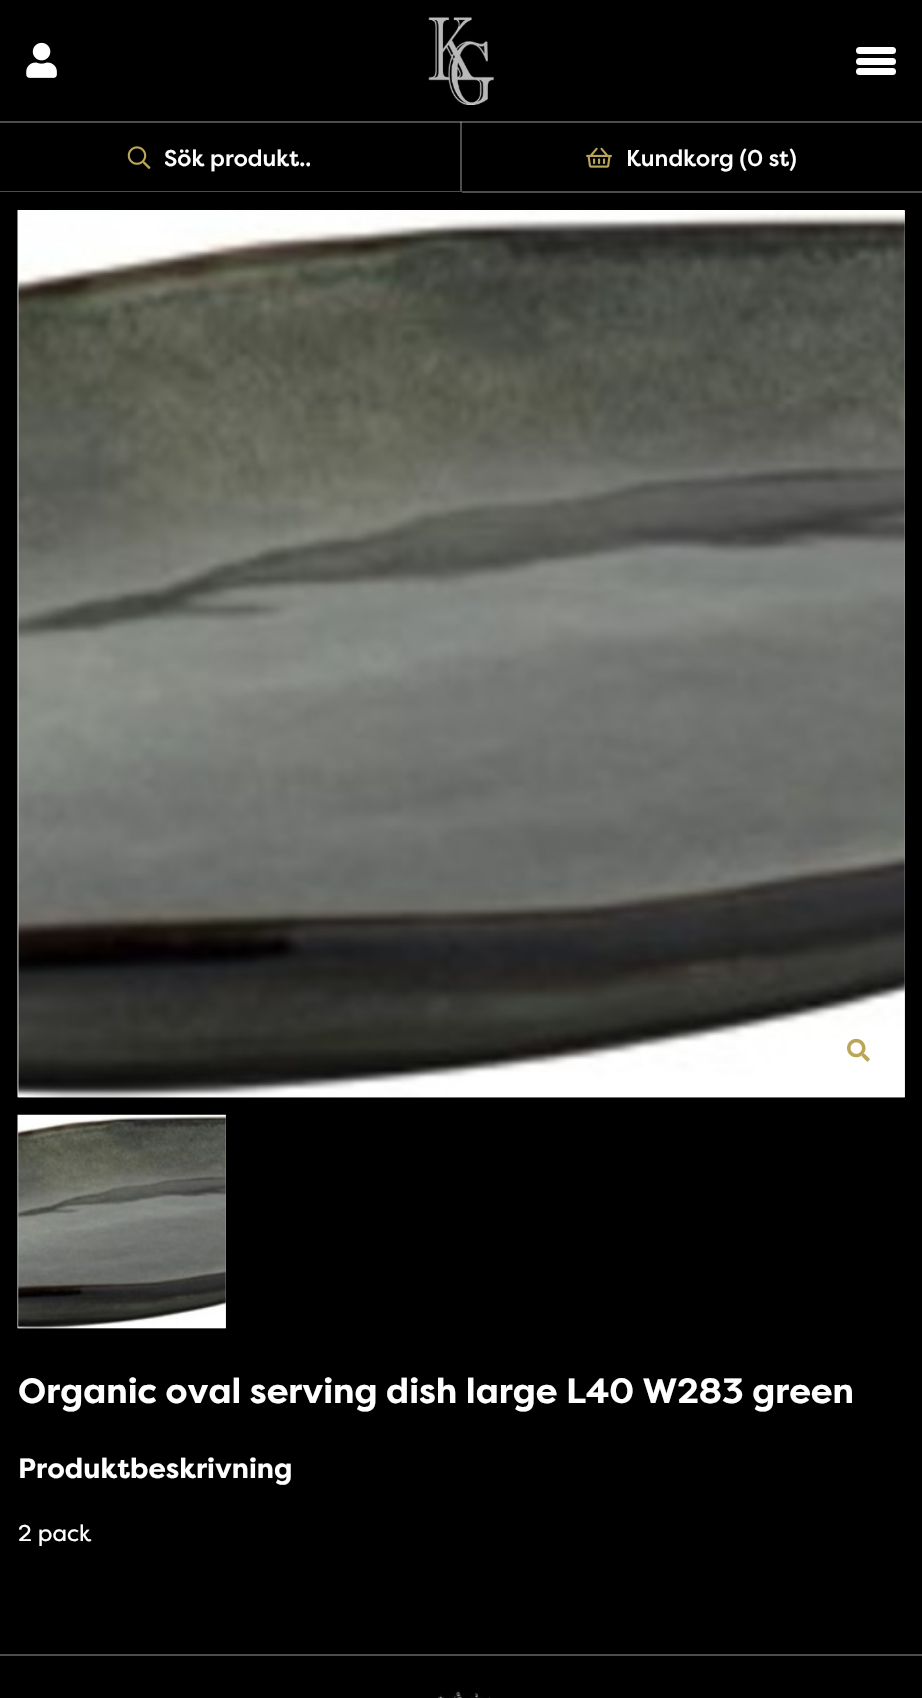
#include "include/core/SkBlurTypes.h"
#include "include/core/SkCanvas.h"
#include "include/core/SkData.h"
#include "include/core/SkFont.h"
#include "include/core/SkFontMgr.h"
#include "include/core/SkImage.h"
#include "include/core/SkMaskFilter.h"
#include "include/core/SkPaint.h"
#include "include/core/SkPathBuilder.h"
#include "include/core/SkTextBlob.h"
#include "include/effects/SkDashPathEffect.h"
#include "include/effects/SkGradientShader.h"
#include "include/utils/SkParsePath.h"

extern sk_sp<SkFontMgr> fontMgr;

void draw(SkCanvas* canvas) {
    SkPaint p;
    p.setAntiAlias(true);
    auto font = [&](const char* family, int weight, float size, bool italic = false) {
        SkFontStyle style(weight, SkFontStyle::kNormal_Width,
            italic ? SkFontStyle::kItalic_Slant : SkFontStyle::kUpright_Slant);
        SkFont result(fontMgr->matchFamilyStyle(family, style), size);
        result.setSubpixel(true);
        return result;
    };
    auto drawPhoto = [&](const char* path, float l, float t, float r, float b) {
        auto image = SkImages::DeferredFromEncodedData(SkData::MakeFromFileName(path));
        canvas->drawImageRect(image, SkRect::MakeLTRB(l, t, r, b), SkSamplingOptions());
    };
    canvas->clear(0xFF000000);
    p.setColor(0xFF4D4D4D);
    canvas->drawRect(SkRect::MakeLTRB(0, 121, 922, 123), p);
    drawPhoto("media/1.png", 26, 42, 57, 78);
    drawPhoto("media/2.png", 428, 17, 494, 105);
    p.setColor(0xFFFFFFFF);
    canvas->drawRoundRect(SkRect::MakeLTRB(856, 47, 896, 54), 3.5f, 3.5f, p);
    canvas->drawRoundRect(SkRect::MakeLTRB(856, 58, 896, 65), 3.5f, 3.5f, p);
    canvas->drawRoundRect(SkRect::MakeLTRB(856, 68, 896, 75), 3.5f, 3.5f, p);
    p.setColor(0x4DFFFFFF);
    canvas->drawPath(SkPathBuilder().moveTo(462, 122).lineTo(462, 192).lineTo(460, 191).lineTo(460, 122).close().detach(), p);
    canvas->drawPath(SkPathBuilder().moveTo(462, 192).lineTo(0, 192).lineTo(0, 191).lineTo(460, 191).close().detach(), p);
    drawPhoto("media/3.png", 127, 146, 151, 169);
    canvas->save();
    canvas->clipRect(SkRect::MakeLTRB(165, 142, 310, 173));
    auto font1 = font("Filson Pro", 500, 22.75f);
    p.setColor(0xFFFFFFFF);
    canvas->drawString("Sök produkt..", 164, 166, font1, p);
    canvas->restore();
    p.setColor(0xFF4D4D4D);
    canvas->drawRect(SkRect::MakeLTRB(462, 191, 922, 193), p);
    drawPhoto("media/4.png", 586, 147, 612, 168);
    p.setColor(0xFFFFFFFF);
    canvas->drawString("Kundkorg (0 st)", 626, 166, font1, p);
    drawPhoto("media/5.png", 17, 210, 905, 1098);
    drawPhoto("media/6.png", 18, 210, 905, 1098);
    drawPhoto("media/7.png", 847, 1038, 870, 1062);
    drawPhoto("media/8.png", 17, 1114, 226, 1329);
    drawPhoto("media/9.png", 18, 1115, 226, 1329);
    auto font2 = font("Filson Pro", 700, 35);
    canvas->drawString("Organic oval serving dish large L40 W283 green", 18, 1403, font2, p);
    auto font3 = font("Filson Pro", 700, 28);
    canvas->drawString("Produktbeskrivning", 18, 1478, font3, p);
    auto font4 = font("Filson Pro", 400, 22.75f);
    canvas->drawString("2 pack", 18, 1541, font4, p);
    p.setColor(0xFF4D4D4D);
    canvas->drawRect(SkRect::MakeLTRB(0, 1654, 922, 1656), p);
    drawPhoto("media/10.png", 438, 1691, 491, 1698);
}
